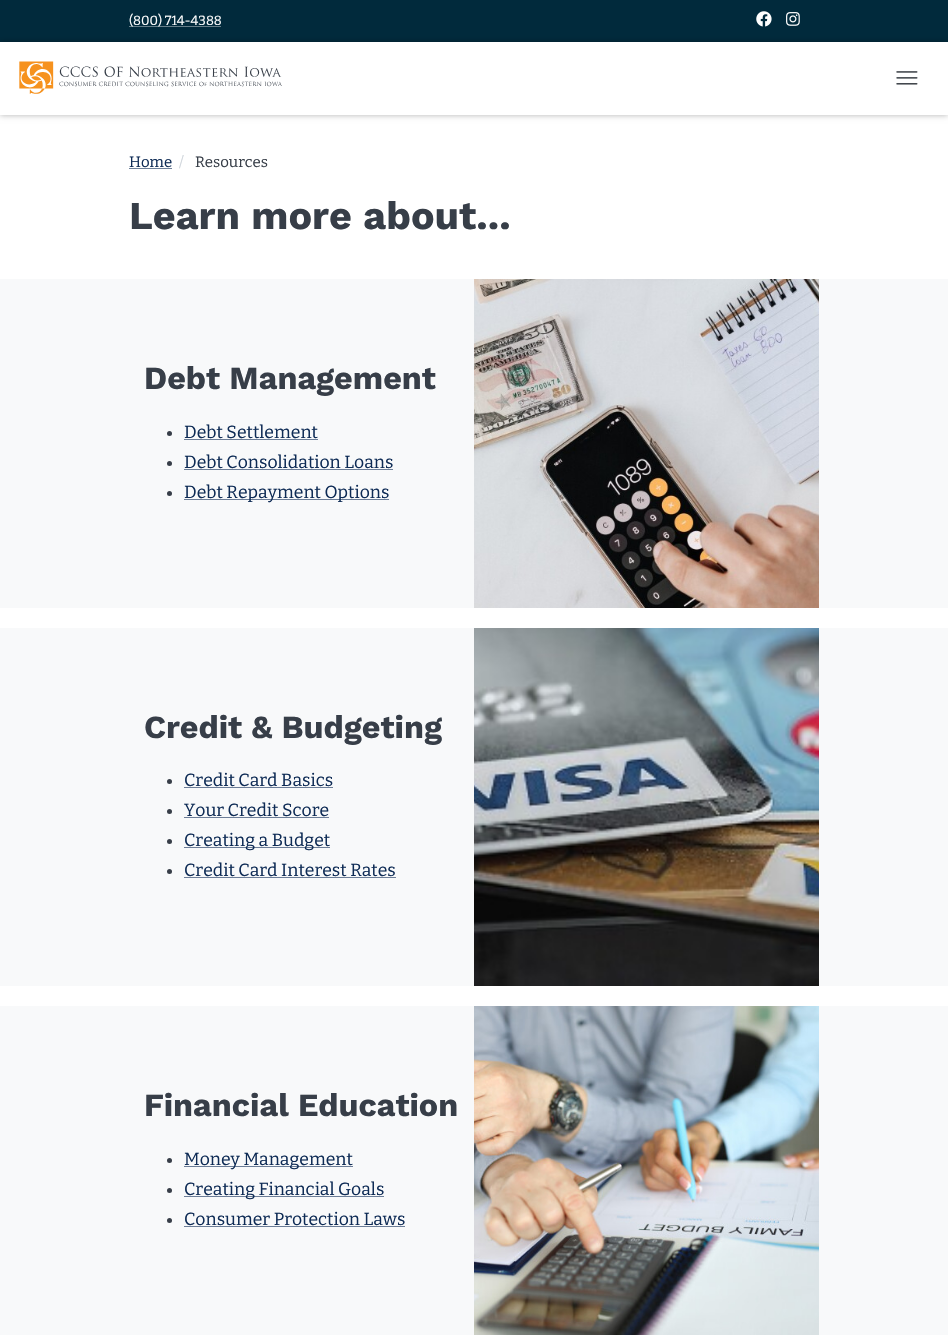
#include "include/core/SkBlurTypes.h"
#include "include/core/SkCanvas.h"
#include "include/core/SkData.h"
#include "include/core/SkFont.h"
#include "include/core/SkFontMgr.h"
#include "include/core/SkImage.h"
#include "include/core/SkMaskFilter.h"
#include "include/core/SkPaint.h"
#include "include/core/SkPathBuilder.h"
#include "include/core/SkTextBlob.h"
#include "include/effects/SkDashPathEffect.h"
#include "include/effects/SkGradientShader.h"
#include "include/utils/SkParsePath.h"

extern sk_sp<SkFontMgr> fontMgr;

void draw(SkCanvas* canvas) {
    SkPaint p;
    p.setAntiAlias(true);
    auto font = [&](const char* family, int weight, float size, bool italic = false) {
        SkFontStyle style(weight, SkFontStyle::kNormal_Width,
            italic ? SkFontStyle::kItalic_Slant : SkFontStyle::kUpright_Slant);
        SkFont result(fontMgr->matchFamilyStyle(family, style), size);
        result.setSubpixel(true);
        return result;
    };
    auto drawPhoto = [&](const char* path, float l, float t, float r, float b) {
        auto image = SkImages::DeferredFromEncodedData(SkData::MakeFromFileName(path));
        canvas->drawImageRect(image, SkRect::MakeLTRB(l, t, r, b), SkSamplingOptions());
    };
    canvas->clear(0xFFFFFFFF);
    p.setColor(0xFF012A3C);
    canvas->drawRect(SkRect::MakeLTRB(0, 0, 948, 42), p);
    p.setColor(0xFF677F8A);
    canvas->drawRect(SkRect::MakeLTRB(129, 26, 221, 27), p);
    auto font1 = font("Bitter", 400, 13.25f);
    p.setColor(0xFFFFFFFF);
    canvas->drawString("(800) 714-4388", 129, 25, font1, p);
    drawPhoto("media/1.png", 756, 11, 772, 27);
    drawPhoto("media/2.png", 786, 12, 800, 26);
    canvas->save();
    canvas->clipPath(SkPathBuilder(SkPathFillType::kEvenOdd).moveTo(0, 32).lineTo(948, 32).lineTo(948, 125).lineTo(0, 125).close().moveTo(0, 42).lineTo(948, 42).lineTo(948, 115).lineTo(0, 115).close().detach(), true);
    p.setColor(0x4D000000);
    p.setMaskFilter(SkMaskFilter::MakeBlur(kNormal_SkBlurStyle, 3));
    canvas->drawRect(SkRect::MakeLTRB(0, 42, 948, 115), p);
    p.setMaskFilter(nullptr);
    canvas->restore();
    drawPhoto("media/3.png", 19, 61, 282, 94);
    drawPhoto("media/4.png", 896, 71, 918, 85);
    auto font2 = font("Bitter", 400, 15);
    p.setColor(0xFF0E2B55);
    canvas->drawString("Home", 129, 167, font2, p);
    p.setColor(0xFF6E8099);
    canvas->drawRect(SkRect::MakeLTRB(129, 168, 172, 169), p);
    p.setColor(0xFFCED4DA);
    canvas->drawString("/", 179, 167, font2, p);
    p.setColor(0xFF373E48);
    canvas->drawString("Resources", 195, 167, font2, p);
    auto font3 = font("Work Sans", 700, 39.5f);
    canvas->drawString("Learn more about...", 129, 229, font3, p);
    p.setColor(0xFFF8F9FA);
    canvas->drawRect(SkRect::MakeLTRB(0, 279, 948, 608), p);
    auto font4 = font("Work Sans", 700, 32.25f);
    p.setColor(0xFF373E48);
    canvas->drawString("Debt Management", 144, 389, font4, p);
    canvas->drawCircle(169.5f, 433.5f, 2.5f, p);
    auto font5 = font("Bitter", 400, 17.6f);
    p.setColor(0xFF0E2B55);
    canvas->drawString("Debt Settlement", 184, 438, font5, p);
    p.setColor(0xFF6C7D97);
    canvas->drawRect(SkRect::MakeLTRB(184, 439, 318, 440), p);
    p.setColor(0xFF373E48);
    canvas->drawCircle(169.5f, 463.5f, 2.5f, p);
    p.setColor(0xFF0E2B55);
    canvas->drawString("Debt Consolidation Loans", 184, 468, font5, p);
    p.setColor(0xFF6C7D97);
    canvas->drawRect(SkRect::MakeLTRB(184, 469, 393, 470), p);
    p.setColor(0xFF373E48);
    canvas->drawCircle(169.5f, 493.5f, 2.5f, p);
    p.setColor(0xFF6C7D97);
    canvas->drawRect(SkRect::MakeLTRB(184, 499, 389, 500), p);
    p.setColor(0xFF0E2B55);
    canvas->drawString("Debt Repayment Options", 184, 498, font5, p);
    drawPhoto("media/5.png", 474, 279, 819, 608);
    p.setColor(0xFFF8F9FA);
    canvas->drawRect(SkRect::MakeLTRB(0, 628, 948, 986), p);
    p.setColor(0xFF373E48);
    canvas->drawString("Credit & Budgeting", 144, 738, font4, p);
    canvas->drawCircle(169.5f, 781.5f, 2.5f, p);
    p.setColor(0xFF0E2B55);
    canvas->drawString("Credit Card Basics", 184, 786, font5, p);
    p.setColor(0xFF6C7D97);
    canvas->drawRect(SkRect::MakeLTRB(184, 787, 333, 788), p);
    p.setColor(0xFF373E48);
    canvas->drawCircle(169.5f, 811.5f, 2.5f, p);
    p.setColor(0xFF0E2B55);
    canvas->drawString("Your Credit Score", 184, 816, font5, p);
    p.setColor(0xFF6C7D97);
    canvas->drawRect(SkRect::MakeLTRB(184, 817, 329, 818), p);
    p.setColor(0xFF373E48);
    canvas->drawCircle(169.5f, 841.5f, 2.5f, p);
    p.setColor(0xFF6C7D97);
    canvas->drawRect(SkRect::MakeLTRB(184, 847, 330, 848), p);
    p.setColor(0xFF0E2B55);
    canvas->drawString("Creating a Budget", 184, 846, font5, p);
    p.setColor(0xFF373E48);
    canvas->drawCircle(169.5f, 871.5f, 2.5f, p);
    p.setColor(0xFF0E2B55);
    canvas->drawString("Credit Card Interest Rates", 184, 876, font5, p);
    p.setColor(0xFF6C7D97);
    canvas->drawRect(SkRect::MakeLTRB(184, 877, 396, 878), p);
    drawPhoto("media/6.png", 474, 628, 819, 986);
    p.setColor(0xFFF8F9FA);
    canvas->drawRect(SkRect::MakeLTRB(0, 1006, 948, 1335), p);
    p.setColor(0xFF373E48);
    canvas->drawString("Financial Education", 144, 1116, font4, p);
    canvas->drawCircle(169.5f, 1160.5f, 2.5f, p);
    p.setColor(0xFF6C7D97);
    canvas->drawRect(SkRect::MakeLTRB(184, 1166, 353, 1167), p);
    p.setColor(0xFF0E2B55);
    canvas->drawString("Money Management", 184, 1165, font5, p);
    p.setColor(0xFF373E48);
    canvas->drawCircle(169.5f, 1190.5f, 2.5f, p);
    p.setColor(0xFF6C7D97);
    canvas->drawRect(SkRect::MakeLTRB(184, 1196, 384, 1197), p);
    p.setColor(0xFF0E2B55);
    canvas->drawString("Creating Financial Goals", 184, 1195, font5, p);
    p.setColor(0xFF373E48);
    canvas->drawCircle(169.5f, 1220.5f, 2.5f, p);
    p.setColor(0xFF0E2B55);
    canvas->drawString("Consumer Protection Laws", 184, 1225, font5, p);
    p.setColor(0xFF6C7D97);
    canvas->drawRect(SkRect::MakeLTRB(184, 1226, 405, 1227), p);
    drawPhoto("media/7.png", 474, 1006, 819, 1335);
}
